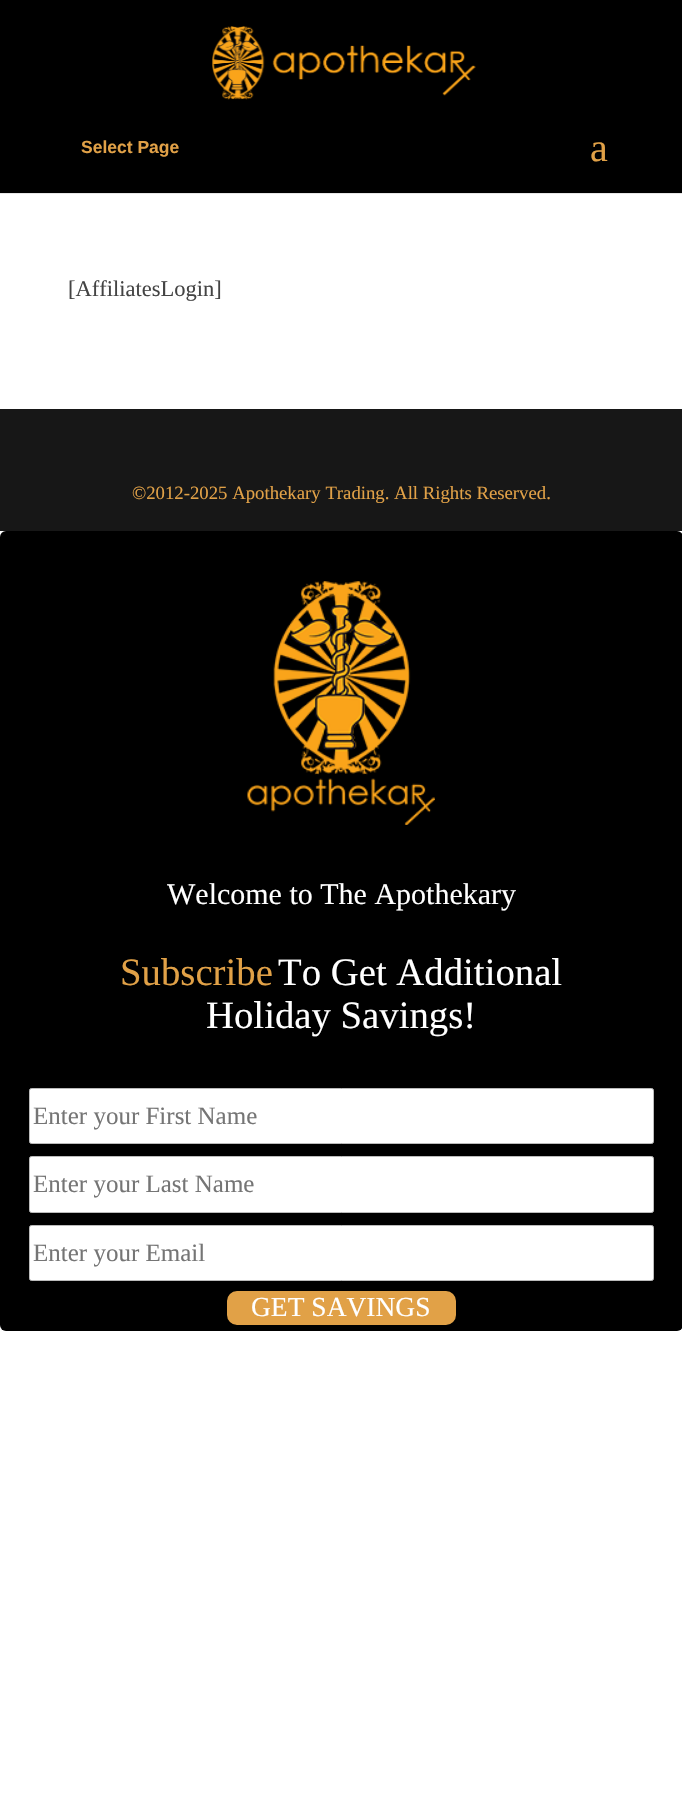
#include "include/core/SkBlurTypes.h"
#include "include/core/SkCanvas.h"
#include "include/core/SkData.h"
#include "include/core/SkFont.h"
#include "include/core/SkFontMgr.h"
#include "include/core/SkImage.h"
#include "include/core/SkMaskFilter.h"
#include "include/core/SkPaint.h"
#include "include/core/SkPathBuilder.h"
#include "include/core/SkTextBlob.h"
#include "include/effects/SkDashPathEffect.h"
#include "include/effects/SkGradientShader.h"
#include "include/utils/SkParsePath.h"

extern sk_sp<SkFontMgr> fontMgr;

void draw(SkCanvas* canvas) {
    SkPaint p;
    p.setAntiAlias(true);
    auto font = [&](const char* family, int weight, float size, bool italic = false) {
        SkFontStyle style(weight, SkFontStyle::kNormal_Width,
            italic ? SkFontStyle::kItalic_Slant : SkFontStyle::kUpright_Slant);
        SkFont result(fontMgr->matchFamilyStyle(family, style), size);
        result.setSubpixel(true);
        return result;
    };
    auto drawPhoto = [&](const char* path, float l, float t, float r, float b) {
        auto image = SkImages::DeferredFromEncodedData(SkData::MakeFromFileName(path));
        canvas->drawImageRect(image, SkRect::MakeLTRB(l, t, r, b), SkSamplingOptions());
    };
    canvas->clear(0xFFFFFFFF);
    p.setColor(0xFFE6E6E6);
    canvas->drawPath(SkPathBuilder().moveTo(0, 192).lineTo(0, 194).lineTo(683, 194).lineTo(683, 1).lineTo(682, 1).lineTo(682, 192).close().detach(), p);
    p.setColor(0xFF000000);
    canvas->drawRect(SkRect::MakeLTRB(0, 0, 682, 193), p);
    drawPhoto("media/1.png", 212, 26, 476, 100);
    auto font1 = font("Liberation Sans", 700, 17.5f);
    p.setColor(0xFFE1A147);
    canvas->drawString("Select Page", 81, 153, font1, p);
    auto font2 = font("Liberation Serif", 400, 40);
    canvas->drawString("a", 590, 161, font2, p);
    auto font3 = font("Liberation Serif", 400, 22.5f);
    p.setColor(0xFF444444);
    canvas->drawString("[AffiliatesLogin]", 68, 296, font3, p);
    p.setColor(0xFF171717);
    canvas->drawRect(SkRect::MakeLTRB(0, 409, 682, 531), p);
    auto font4 = font("Liberation Serif", 400, 18.75f);
    p.setColor(0xFFE1A147);
    canvas->drawString("©2012-2025 Apothekary Trading. All Rights Reserved.", 132, 499, font4, p);
    p.setColor(0xFF000000);
    canvas->drawRoundRect(SkRect::MakeLTRB(0, 531, 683, 1331), 6, 6, p);
    drawPhoto("media/2.png", 247, 581, 435, 825);
    auto font5 = font("Liberation Serif", 400, 30);
    p.setColor(0xFFFFFFFF);
    canvas->drawString("Welcome to The Apothekary", 167, 904, font5, p);
    auto font6 = font("Liberation Serif", 400, 38.75f);
    p.setColor(0xFFE1A147);
    canvas->drawString("Subscribe", 120, 985, font6, p);
    p.setColor(0xFFFFFFFF);
    canvas->drawString("To Get Additional", 278, 985, font6, p);
    canvas->drawString("Holiday Savings!", 206, 1028, font6, p);
    canvas->drawRoundRect(SkRect::MakeLTRB(29.5f, 1088.5f, 653.5f, 1143.5f), 2, 2, p);
    p.setStyle(SkPaint::kStroke_Style);
    p.setStrokeWidth(1);
    p.setColor(0xFFBBBBBB);
    canvas->drawRoundRect(SkRect::MakeLTRB(29.5f, 1088.5f, 653.5f, 1143.5f), 2, 2, p);
    auto font7 = font("Liberation Serif", 400, 25);
    p.setStyle(SkPaint::kFill_Style);
    p.setColor(0xFF757575);
    canvas->drawString("Enter your First Name", 33, 1124, font7, p);
    p.setColor(0xFFFFFFFF);
    canvas->drawRoundRect(SkRect::MakeLTRB(29.5f, 1156.5f, 653.5f, 1212.5f), 2, 2, p);
    p.setStyle(SkPaint::kStroke_Style);
    p.setColor(0xFFBBBBBB);
    canvas->drawRoundRect(SkRect::MakeLTRB(29.5f, 1156.5f, 653.5f, 1212.5f), 2, 2, p);
    p.setStyle(SkPaint::kFill_Style);
    p.setColor(0xFF757575);
    canvas->drawString("Enter your Last Name", 33, 1192, font7, p);
    p.setColor(0xFFFFFFFF);
    canvas->drawRoundRect(SkRect::MakeLTRB(29.5f, 1225.5f, 653.5f, 1280.5f), 2, 2, p);
    p.setStyle(SkPaint::kStroke_Style);
    p.setColor(0xFFBBBBBB);
    canvas->drawRoundRect(SkRect::MakeLTRB(29.5f, 1225.5f, 653.5f, 1280.5f), 2, 2, p);
    p.setStyle(SkPaint::kFill_Style);
    p.setColor(0xFF757575);
    canvas->drawString("Enter your Email", 33, 1261, font7, p);
    p.setColor(0xFFE1A147);
    canvas->drawRoundRect(SkRect::MakeLTRB(225.5f, 1289.5f, 457.5f, 1326.5f), 11.5f, 11.5f, p);
    p.setStyle(SkPaint::kStroke_Style);
    p.setStrokeWidth(3);
    p.setColor(0xFF000000);
    canvas->drawRoundRect(SkRect::MakeLTRB(225.5f, 1289.5f, 457.5f, 1326.5f), 11.5f, 11.5f, p);
    auto font8 = font("Liberation Serif", 400, 27.5f);
    p.setStyle(SkPaint::kFill_Style);
    p.setColor(0xFFFFFFFF);
    canvas->drawString("GET SAVINGS", 251, 1316, font8, p);
}
